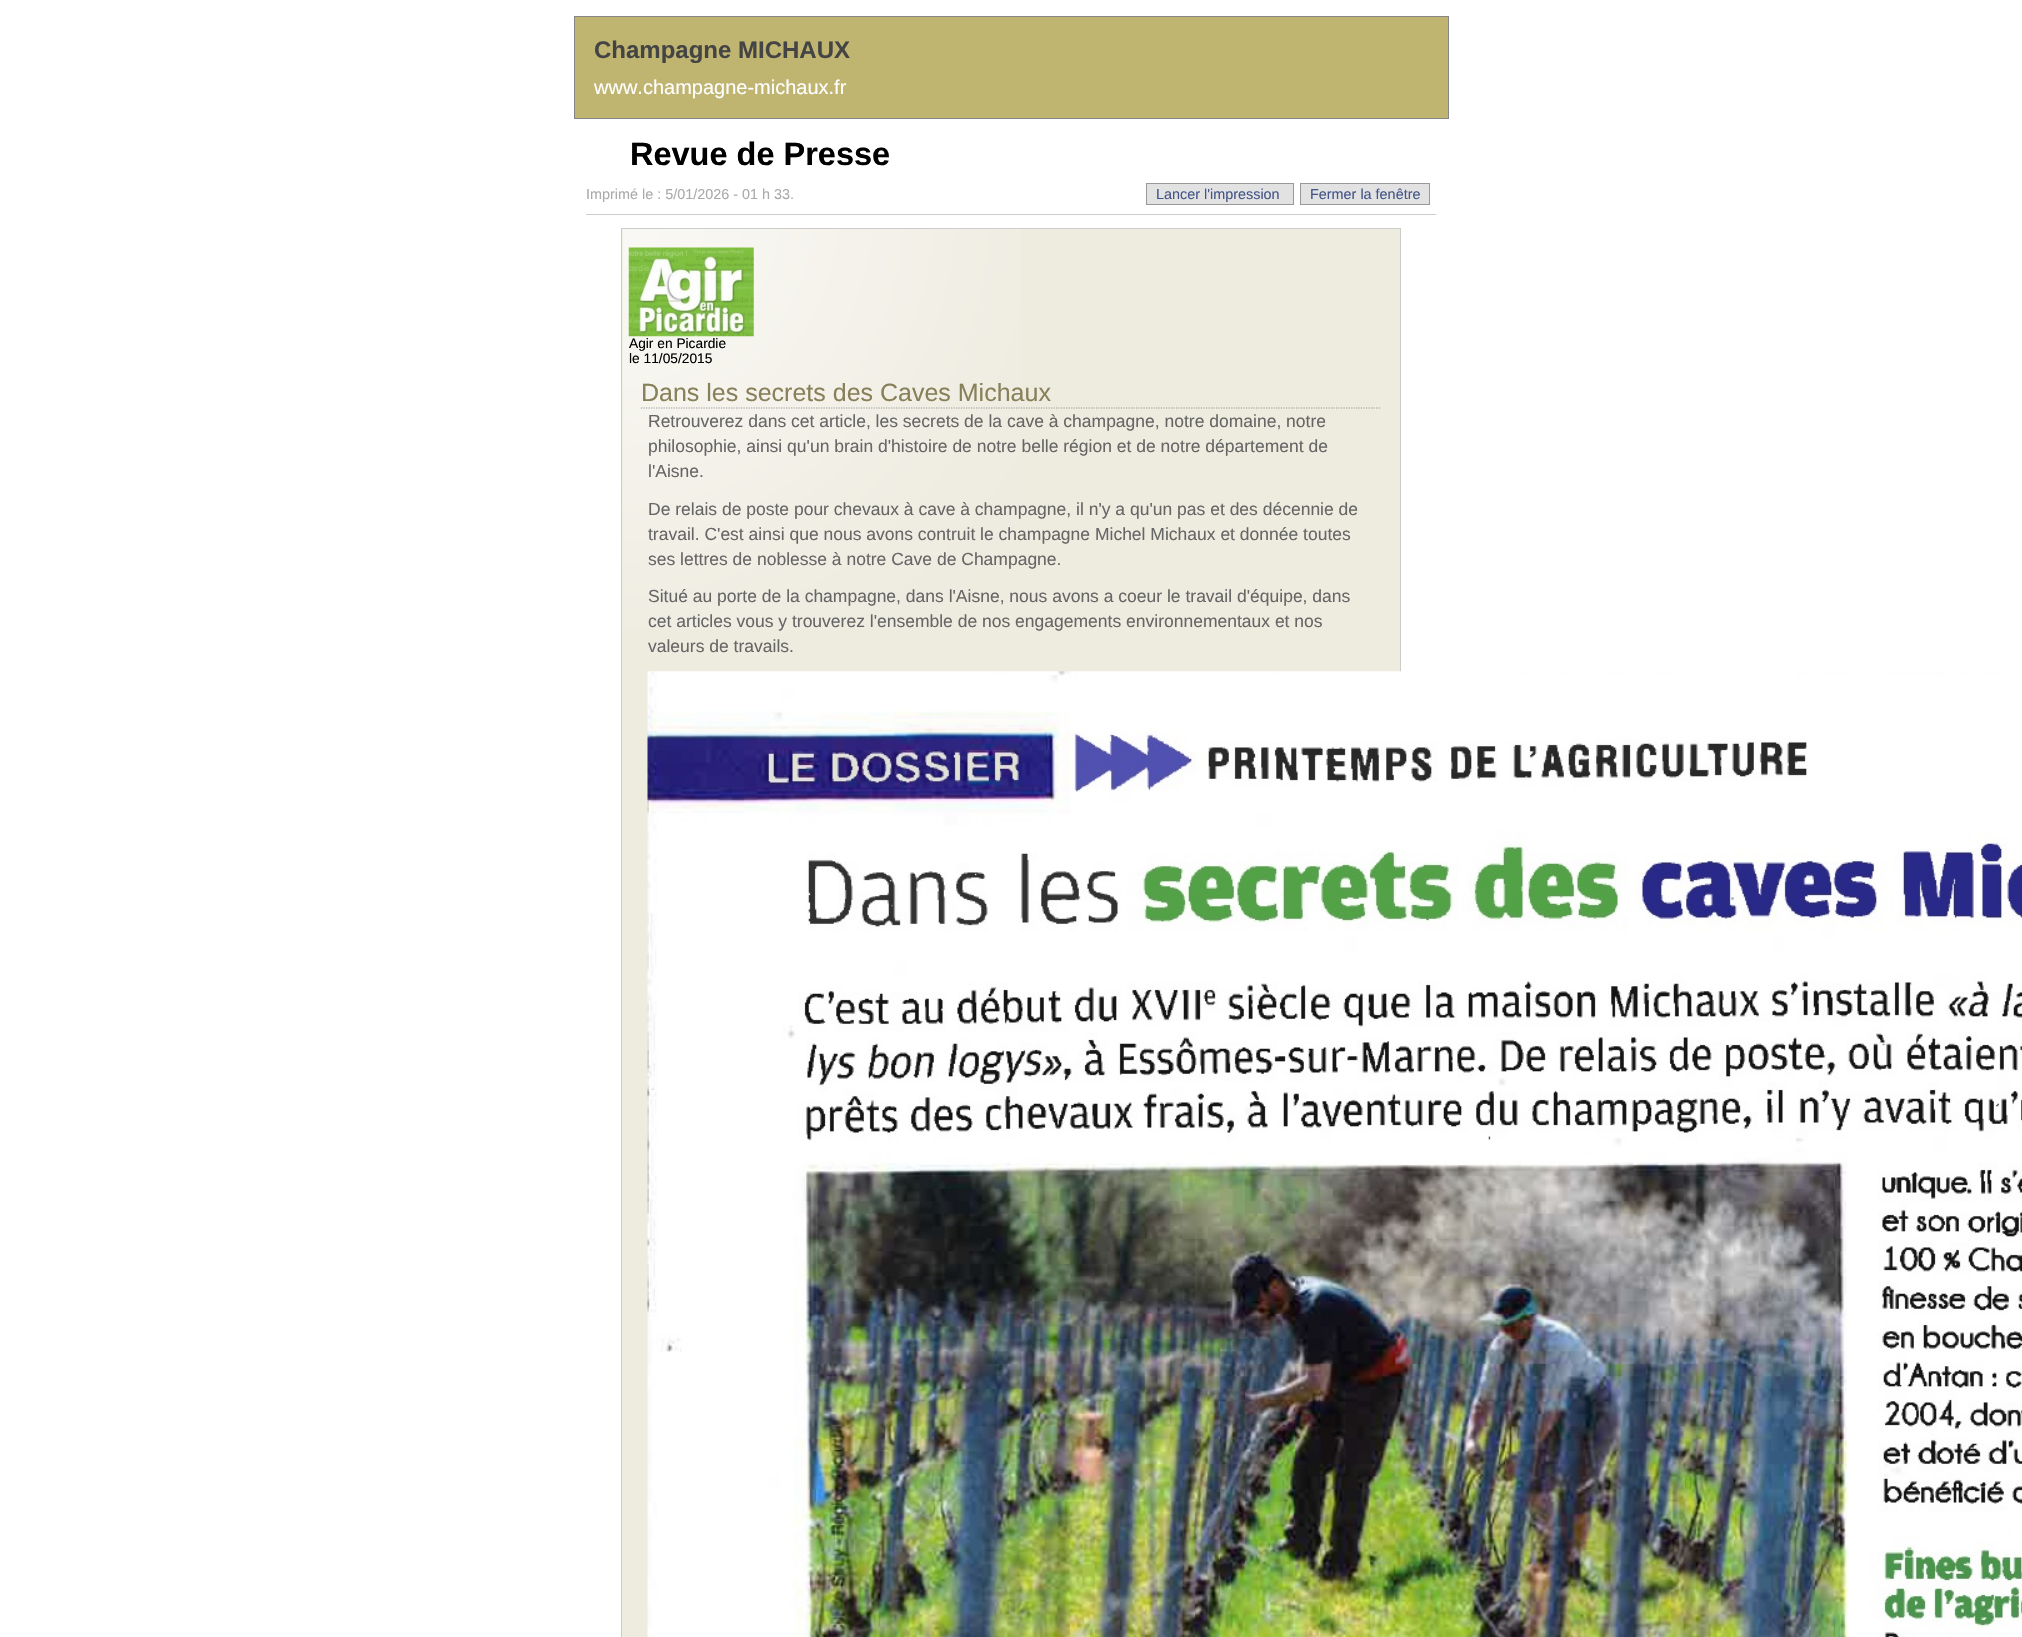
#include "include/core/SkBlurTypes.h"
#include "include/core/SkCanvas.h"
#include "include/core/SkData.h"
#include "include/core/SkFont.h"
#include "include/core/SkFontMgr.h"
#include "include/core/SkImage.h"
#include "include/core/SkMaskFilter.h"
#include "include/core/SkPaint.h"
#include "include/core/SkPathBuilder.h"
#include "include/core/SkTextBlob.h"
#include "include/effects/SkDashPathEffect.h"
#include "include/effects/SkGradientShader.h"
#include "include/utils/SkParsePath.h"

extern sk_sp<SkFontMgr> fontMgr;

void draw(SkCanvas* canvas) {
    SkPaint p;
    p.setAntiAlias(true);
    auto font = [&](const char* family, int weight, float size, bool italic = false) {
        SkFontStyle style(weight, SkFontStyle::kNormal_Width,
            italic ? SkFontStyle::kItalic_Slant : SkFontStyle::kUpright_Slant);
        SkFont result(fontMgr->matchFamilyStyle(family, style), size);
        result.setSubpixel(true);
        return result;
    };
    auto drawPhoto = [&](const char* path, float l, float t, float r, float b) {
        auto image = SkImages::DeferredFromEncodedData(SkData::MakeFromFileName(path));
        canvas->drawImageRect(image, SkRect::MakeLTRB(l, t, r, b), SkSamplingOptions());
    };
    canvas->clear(0xFFFFFFFF);
    p.setColor(0xFFBFB470);
    canvas->drawRect(SkRect::MakeLTRB(574.5f, 16.5f, 1448.5f, 118.5f), p);
    p.setStyle(SkPaint::kStroke_Style);
    p.setStrokeWidth(1);
    p.setColor(0xFF868686);
    canvas->drawRect(SkRect::MakeLTRB(574.5f, 16.5f, 1448.5f, 118.5f), p);
    auto font1 = font("Liberation Sans", 700, 24);
    p.setStyle(SkPaint::kFill_Style);
    p.setColor(0xFF444444);
    canvas->drawString("Champagne MICHAUX", 594, 58, font1, p);
    auto font2 = font("Liberation Sans", 400, 20);
    p.setColor(0xFFFFFFFF);
    canvas->drawString("www.champagne-michaux.fr", 594, 94, font2, p);
    auto font3 = font("Liberation Sans", 700, 32.5f);
    p.setColor(0xFF000000);
    canvas->drawString("Revue de Presse", 630, 165, font3, p);
    p.setColor(0xFFCCCCCC);
    canvas->drawRect(SkRect::MakeLTRB(586, 214, 1436, 215), p);
    auto font4 = font("Liberation Sans", 400, 14.4f);
    p.setColor(0xFFAAAAAA);
    canvas->drawString("Imprimé le : 5/01/2026 - 01 h 33.", 586, 199, font4, p);
    p.setColor(0xFFE2E2E2);
    canvas->drawRect(SkRect::MakeLTRB(1146.5f, 183.5f, 1293.5f, 204.5f), p);
    p.setStyle(SkPaint::kStroke_Style);
    p.setColor(0xFF999999);
    canvas->drawRect(SkRect::MakeLTRB(1146.5f, 183.5f, 1293.5f, 204.5f), p);
    p.setStyle(SkPaint::kFill_Style);
    p.setColor(0xFF445588);
    canvas->drawString("Lancer l'impression", 1156, 199, font4, p);
    p.setColor(0xFFE2E2E2);
    canvas->drawRect(SkRect::MakeLTRB(1300.5f, 183.5f, 1429.5f, 204.5f), p);
    p.setStyle(SkPaint::kStroke_Style);
    p.setColor(0xFF999999);
    canvas->drawRect(SkRect::MakeLTRB(1300.5f, 183.5f, 1429.5f, 204.5f), p);
    p.setStyle(SkPaint::kFill_Style);
    p.setColor(0xFF445588);
    canvas->drawString("Fermer la fenêtre", 1310, 199, font4, p);
    p.setColor(0xFFEEEBDF);
    canvas->drawRect(SkRect::MakeLTRB(622, 229, 1400, 1637), p);
    drawPhoto("media/1.png", 622, 229, 1021, 629);
    p.setStyle(SkPaint::kStroke_Style);
    p.setColor(0xFFCCCCCC);
    canvas->drawRect(SkRect::MakeLTRB(621.5f, 228.5f, 1400.5f, 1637.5f), p);
    drawPhoto("media/2.png", 628, 247, 754, 337);
    auto font5 = font("Liberation Sans", 400, 13.75f);
    p.setStyle(SkPaint::kFill_Style);
    p.setColor(0xFF000000);
    canvas->drawString("Agir en Picardie", 629, 348, font5, p);
    canvas->drawString("le 11/05/2015", 629, 363, font5, p);
    p.setStyle(SkPaint::kStroke_Style);
    p.setStrokeWidth(1.2f);
    p.setColor(0xFF999999);
    p.setPathEffect(SkDashPathEffect::Make({{1.25f, 1.25f}}, 0));
    canvas->drawPath(SkPathBuilder().moveTo(641, 408).lineTo(1381, 408).detach(), p);
    p.setPathEffect(nullptr);
    auto font6 = font("Liberation Sans", 400, 25);
    p.setStyle(SkPaint::kFill_Style);
    p.setColor(0xFF878059);
    canvas->drawString("Dans les secrets des Caves Michaux", 641, 401, font6, p);
    auto font7 = font("Liberation Sans", 400, 17.5f);
    p.setColor(0xFF666666);
    {
        const struct { const char* s; float x, y; } items[] = {
            {"Retrouverez dans cet article, les secrets de la cave à champagne, notre domaine, notre", 648, 427},
            {"philosophie, ainsi qu'un brain d'histoire de notre belle région et de notre département de", 648, 452},
            {"l'Aisne.", 648, 477},
            {"De relais de poste pour chevaux à cave à champagne, il n'y a qu'un pas et des décennie de", 648, 515},
            {"travail. C'est ainsi que nous avons contruit le champagne Michel Michaux et donnée toutes", 648, 540},
            {"ses lettres de noblesse à notre Cave de Champagne.", 648, 565},
            {"Situé au porte de la champagne, dans l'Aisne, nous avons a coeur le travail d'équipe, dans", 648, 602},
            {"cet articles vous y trouverez l'ensemble de nos engagements environnementaux et nos", 648, 627},
            {"valeurs de travails.", 648, 652},
        };
        for (auto [s, x, y] : items) {
            canvas->drawString(s, x, y, font7, p);
        }
    }
    drawPhoto("media/3.png", 647, 671, 2022, 1637);
}
